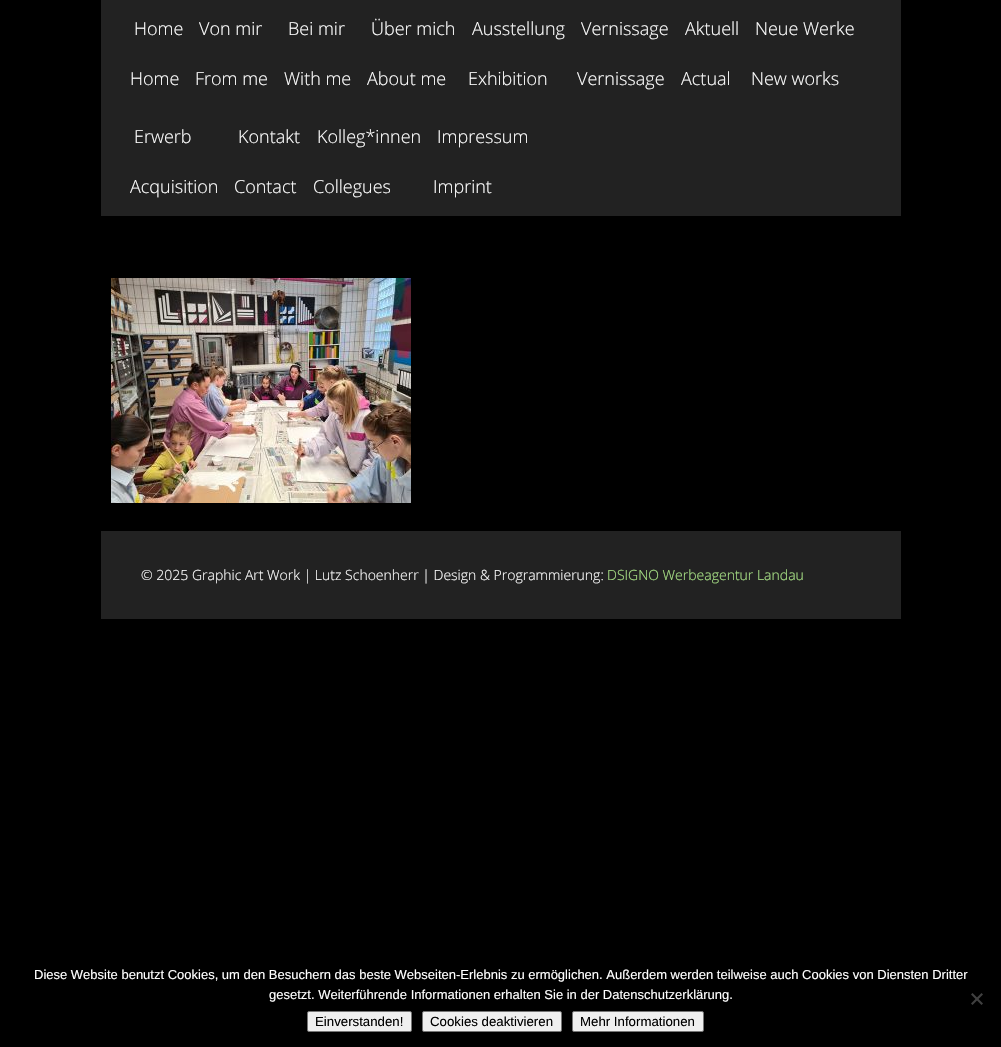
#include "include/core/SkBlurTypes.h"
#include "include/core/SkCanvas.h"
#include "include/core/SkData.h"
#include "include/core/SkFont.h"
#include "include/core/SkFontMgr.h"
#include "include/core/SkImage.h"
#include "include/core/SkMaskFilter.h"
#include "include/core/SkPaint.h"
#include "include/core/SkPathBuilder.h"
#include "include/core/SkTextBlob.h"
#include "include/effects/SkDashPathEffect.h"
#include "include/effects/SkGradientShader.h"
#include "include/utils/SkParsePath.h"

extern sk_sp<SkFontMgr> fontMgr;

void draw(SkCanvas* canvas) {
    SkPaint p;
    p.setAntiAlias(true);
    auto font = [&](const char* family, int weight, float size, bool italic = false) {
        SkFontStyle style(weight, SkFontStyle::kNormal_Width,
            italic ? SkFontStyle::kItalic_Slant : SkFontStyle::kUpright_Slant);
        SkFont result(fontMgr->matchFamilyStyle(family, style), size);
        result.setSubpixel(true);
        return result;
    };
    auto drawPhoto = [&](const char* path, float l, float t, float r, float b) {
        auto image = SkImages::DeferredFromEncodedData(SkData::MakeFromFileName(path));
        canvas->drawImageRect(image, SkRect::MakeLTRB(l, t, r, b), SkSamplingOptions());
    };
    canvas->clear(0xFF000000);
    p.setColor(0xFF222222);
    canvas->drawRect(SkRect::MakeLTRB(101, 0, 901, 216), p);
    auto font1 = font("Open Sans", 300, 18);
    p.setColor(0xFFFFFFFF);
    {
        const struct { const char* s; float x, y; } items[] = {
            {"Home", 134, 35},
            {"Home", 130, 85},
            {"Von mir", 199, 35},
            {"From me", 195, 85},
            {"Bei mir", 288, 35},
            {"With me", 284, 85},
            {"Über mich", 371, 35},
            {"About me", 367, 85},
            {"Ausstellung", 472, 35},
            {"Exhibition", 468, 85},
            {"Vernissage", 581, 35},
            {"Vernissage", 577, 85},
            {"Aktuell", 685, 35},
            {"Actual", 681, 85},
            {"Neue Werke", 755, 35},
            {"New works", 751, 85},
            {"Erwerb", 134, 143},
            {"Acquisition", 130, 193},
            {"Kontakt", 238, 143},
            {"Contact", 234, 193},
            {"Kolleg*innen", 317, 143},
            {"Collegues", 313, 193},
            {"Impressum", 437, 143},
            {"Imprint", 433, 193},
        };
        for (auto [s, x, y] : items) {
            canvas->drawString(s, x, y, font1, p);
        }
    }
    drawPhoto("media/1.png", 111, 278, 411, 503);
    p.setColor(0xFF222222);
    canvas->drawRect(SkRect::MakeLTRB(101, 531, 901, 619), p);
    auto font2 = font("Open Sans", 300, 14);
    p.setColor(0xFFFFFFFF);
    canvas->drawString("© 2025 Graphic Art Work | Lutz Schoenherr | Design & Programmierung:", 141, 580, font2, p);
    p.setColor(0xFFA7E085);
    canvas->drawString("DSIGNO Werbeagentur Landau", 607, 580, font2, p);
    auto font3 = font("Liberation Sans", 400, 13);
    p.setColor(0xFFFFFFFF);
    canvas->drawString("Diese Website benutzt Cookies, um den Besuchern das beste Webseiten-Erlebnis zu ermöglichen. Außerdem werden teilweise auch Cookies von Diensten Dritter", 34, 979, font3, p);
    canvas->drawString("gesetzt. Weiterführende Informationen erhalten Sie in der Datenschutzerklärung.", 269, 999, font3, p);
    p.setColor(0xFF404040);
    canvas->drawPath(SkPathBuilder().moveTo(981.5f, 993).lineTo(983, 994.5f).lineTo(972.5f, 1005).lineTo(971, 1003.5f).close().detach(), p);
    canvas->drawPath(SkPathBuilder().moveTo(971, 994.5f).lineTo(972.5f, 993).lineTo(983, 1003.5f).lineTo(981.5f, 1005).close().detach(), p);
    p.setColor(0xFFEFEFEF);
    canvas->drawRoundRect(SkRect::MakeLTRB(307.5f, 1011.5f, 411.5f, 1031.5f), 1.5f, 1.5f, p);
    p.setStyle(SkPaint::kStroke_Style);
    p.setStrokeWidth(1);
    p.setColor(0xFF767676);
    canvas->drawRoundRect(SkRect::MakeLTRB(307.5f, 1011.5f, 411.5f, 1031.5f), 1.5f, 1.5f, p);
    auto font4 = font("Liberation Sans", 400, 13.25f);
    p.setStyle(SkPaint::kFill_Style);
    p.setColor(0xFF000000);
    canvas->drawString("Einverstanden!", 315, 1026, font4, p);
    p.setColor(0xFFEFEFEF);
    canvas->drawRoundRect(SkRect::MakeLTRB(422.5f, 1011.5f, 561.5f, 1031.5f), 1.5f, 1.5f, p);
    p.setStyle(SkPaint::kStroke_Style);
    p.setColor(0xFF767676);
    canvas->drawRoundRect(SkRect::MakeLTRB(422.5f, 1011.5f, 561.5f, 1031.5f), 1.5f, 1.5f, p);
    p.setStyle(SkPaint::kFill_Style);
    p.setColor(0xFF000000);
    canvas->drawString("Cookies deaktivieren", 430, 1026, font4, p);
    p.setColor(0xFFEFEFEF);
    canvas->drawRoundRect(SkRect::MakeLTRB(572.5f, 1011.5f, 703.5f, 1031.5f), 1.5f, 1.5f, p);
    p.setStyle(SkPaint::kStroke_Style);
    p.setColor(0xFF767676);
    canvas->drawRoundRect(SkRect::MakeLTRB(572.5f, 1011.5f, 703.5f, 1031.5f), 1.5f, 1.5f, p);
    p.setStyle(SkPaint::kFill_Style);
    p.setColor(0xFF000000);
    canvas->drawString("Mehr Informationen", 580, 1026, font4, p);
}
